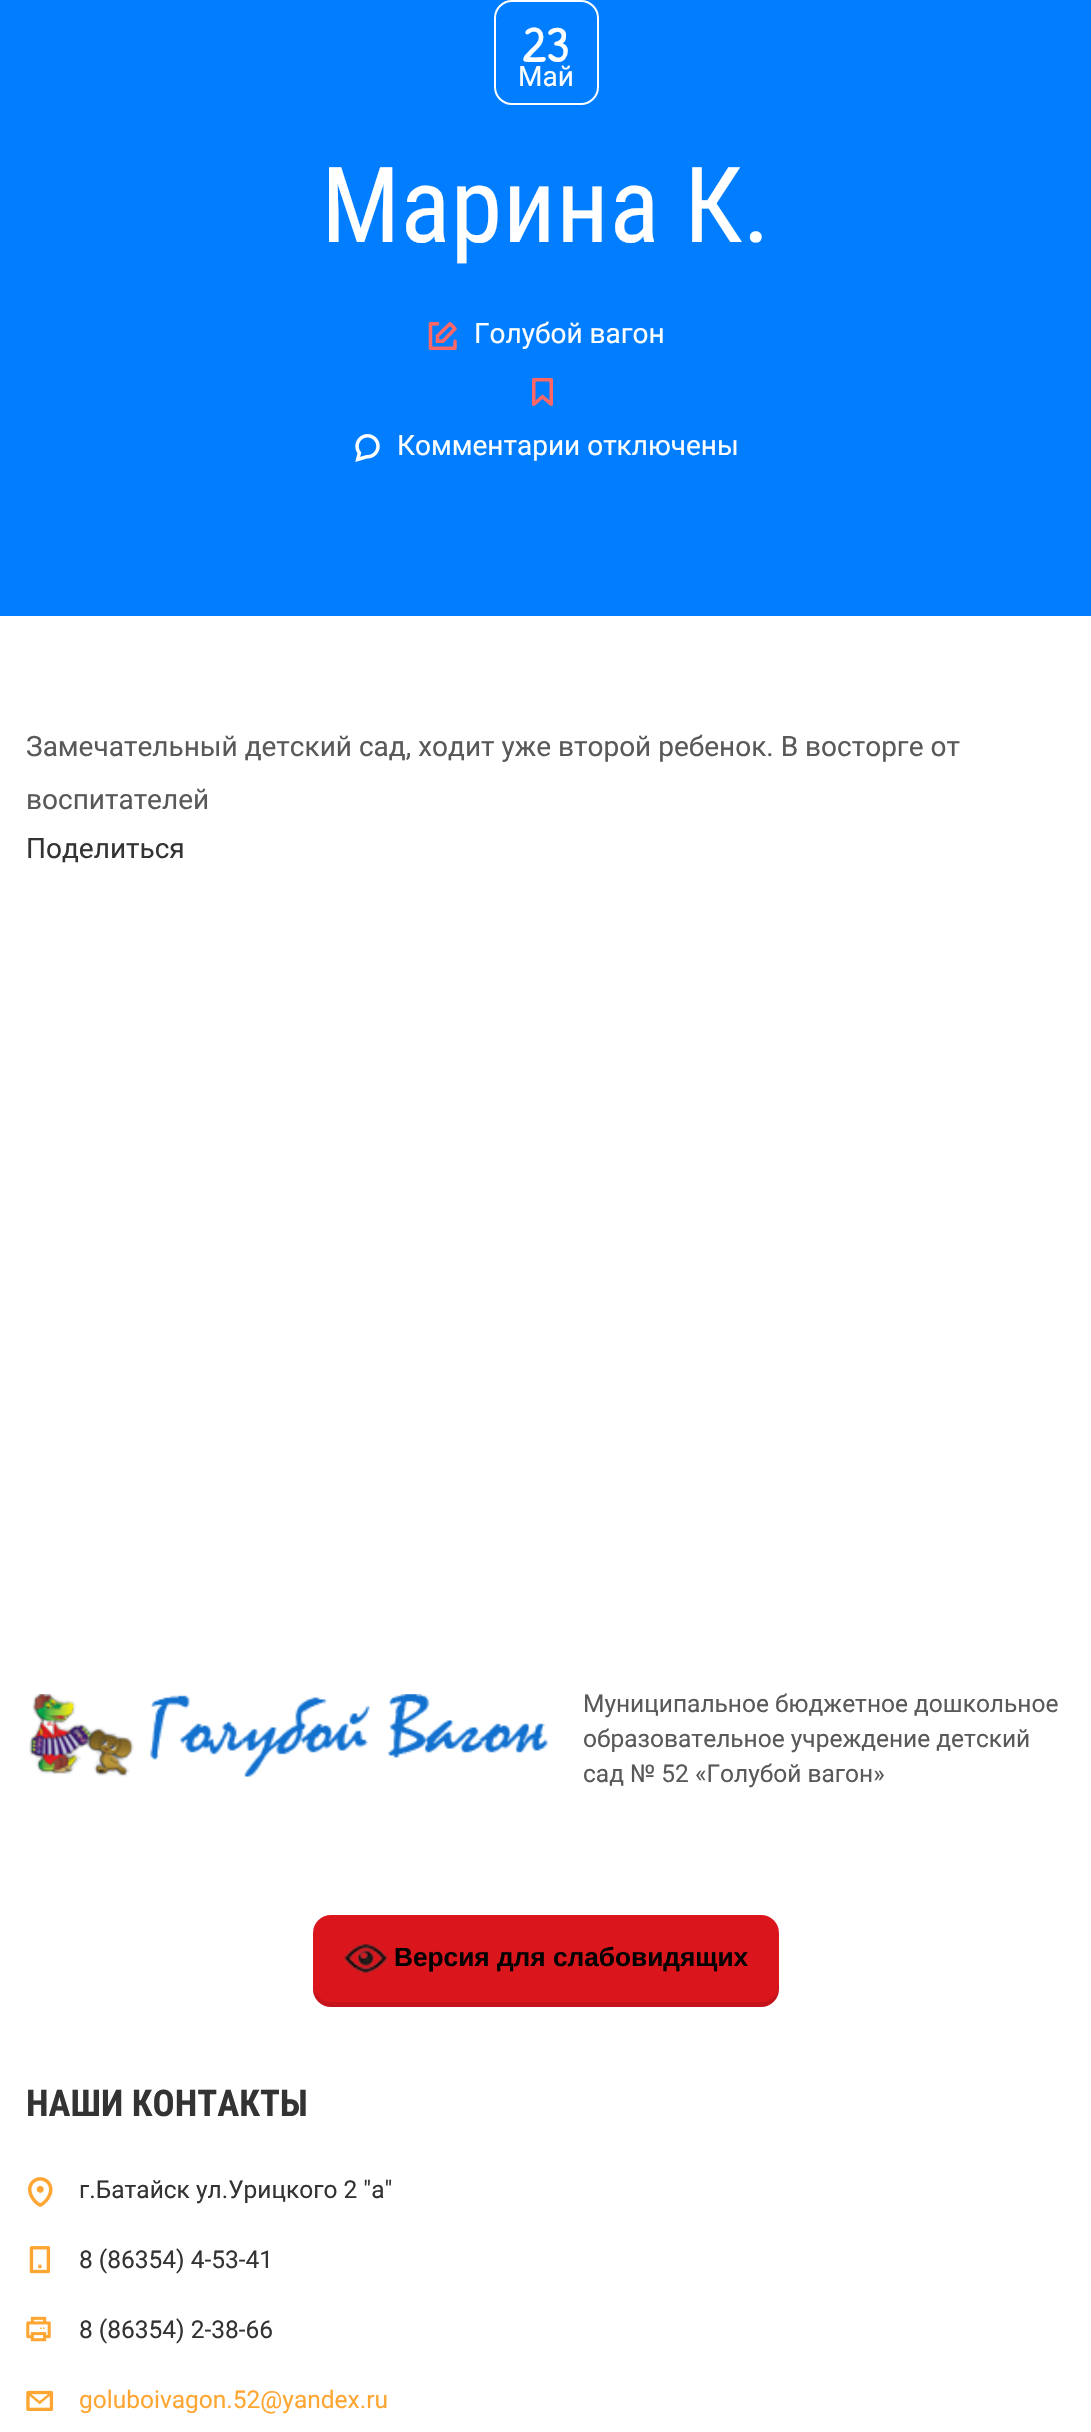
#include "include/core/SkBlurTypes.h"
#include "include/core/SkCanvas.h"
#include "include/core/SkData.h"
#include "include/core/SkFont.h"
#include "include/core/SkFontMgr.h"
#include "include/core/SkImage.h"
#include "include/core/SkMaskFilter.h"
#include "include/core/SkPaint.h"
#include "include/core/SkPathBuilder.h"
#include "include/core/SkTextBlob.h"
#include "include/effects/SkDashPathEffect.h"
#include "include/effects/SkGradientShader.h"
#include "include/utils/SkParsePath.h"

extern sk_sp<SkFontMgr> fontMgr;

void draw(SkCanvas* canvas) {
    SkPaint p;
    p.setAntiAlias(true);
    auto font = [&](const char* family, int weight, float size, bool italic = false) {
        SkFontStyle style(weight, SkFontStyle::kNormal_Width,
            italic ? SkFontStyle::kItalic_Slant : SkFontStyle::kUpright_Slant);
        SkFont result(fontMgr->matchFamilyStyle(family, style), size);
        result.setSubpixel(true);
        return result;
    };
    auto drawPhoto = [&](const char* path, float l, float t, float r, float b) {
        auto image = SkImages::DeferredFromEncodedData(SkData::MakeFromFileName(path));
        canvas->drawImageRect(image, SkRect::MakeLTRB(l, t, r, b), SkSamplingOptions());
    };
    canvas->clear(0xFFFFFFFF);
    p.setColor(0xFF007EFF);
    canvas->drawRect(SkRect::MakeLTRB(0, 0, 1091, 616), p);
    p.setStyle(SkPaint::kStroke_Style);
    p.setStrokeWidth(2);
    p.setColor(0xFFFFFFFF);
    canvas->drawRoundRect(SkRect::MakeLTRB(495, 1, 598, 104), 17, 17, p);
    auto font1 = font("Patrick Hand", 400, 52);
    p.setStyle(SkPaint::kFill_Style);
    canvas->drawString("23", 522, 62, font1, p);
    auto font2 = font("Roboto", 400, 28);
    canvas->drawString("Май", 518, 86, font2, p);
    auto font3 = font("Roboto Condensed", 400, 105);
    canvas->drawString("Марина К.", 321, 242, font3, p);
    drawPhoto("media/1.png", 428, 322, 457, 350);
    canvas->drawString("Голубой вагон", 474, 343, font2, p);
    drawPhoto("media/2.png", 532, 378, 553, 406);
    drawPhoto("media/3.png", 355, 434, 380, 462);
    canvas->drawString("Комментарии отключены", 397, 455, font2, p);
    p.setColor(0xFF595959);
    canvas->drawString("Замечательный детский сад, ходит уже второй ребенок. В восторге от", 26, 756, font2, p);
    canvas->drawString("воспитателей", 26, 809, font2, p);
    p.setColor(0xFF333333);
    canvas->drawString("Поделиться", 26, 858, font2, p);
    drawPhoto("media/4.png", 29, 1694, 548, 1777);
    auto font4 = font("Roboto", 400, 24.5f);
    p.setColor(0xFF595959);
    {
        const struct { const char* s; float x, y; } items[] = {
            {"Муниципальное бюджетное дошкольное", 583, 1712},
            {"образовательное учреждение детский", 583, 1747},
            {"сад № 52 «Голубой вагон»", 583, 1782},
        };
        for (auto [s, x, y] : items) {
            canvas->drawString(s, x, y, font4, p);
        }
    }
    p.setColor(0xFFDB151C);
    canvas->drawRoundRect(SkRect::MakeLTRB(313, 1915, 779, 2007), 18, 18, p);
    p.setColor(0x1A000000);
    canvas->drawPath(SkPathBuilder().moveTo(313, 1984).lineTo(313, 1989).cubicTo(313, 1999, 321, 2007, 331, 2007).lineTo(761, 2007).cubicTo(771, 2007, 779, 1999, 779, 1989).lineTo(779, 1984).cubicTo(779, 1994, 771, 2002, 761, 2002).lineTo(331, 2002).cubicTo(321, 2002, 313, 1994, 313, 1984).close().detach(), p);
    drawPhoto("media/5.png", 344, 1944, 387, 1973);
    auto font5 = font("Liberation Sans", 700, 26.25f);
    p.setColor(0xFF000000);
    canvas->drawString("Версия для слабовидящих", 394, 1966, font5, p);
    auto font6 = font("Roboto Condensed", 700, 36.75f);
    p.setColor(0xFF333333);
    canvas->drawString("НАШИ КОНТАКТЫ", 26, 2116, font6, p);
    drawPhoto("media/6.png", 28, 2177, 53, 2207);
    canvas->drawString("г.Батайск ул.Урицкого 2 \"а\"", 79, 2198, font4, p);
    drawPhoto("media/7.png", 29, 2246, 51, 2274);
    canvas->drawString("8 (86354) 4-53-41", 79, 2268, font4, p);
    drawPhoto("media/8.png", 26, 2316, 51, 2342);
    canvas->drawString("8 (86354) 2-38-66", 79, 2338, font4, p);
    drawPhoto("media/9.png", 26, 2390, 54, 2411);
    p.setColor(0xFFFEA633);
    canvas->drawString("goluboivagon.52@yandex.ru", 79, 2408, font4, p);
}
